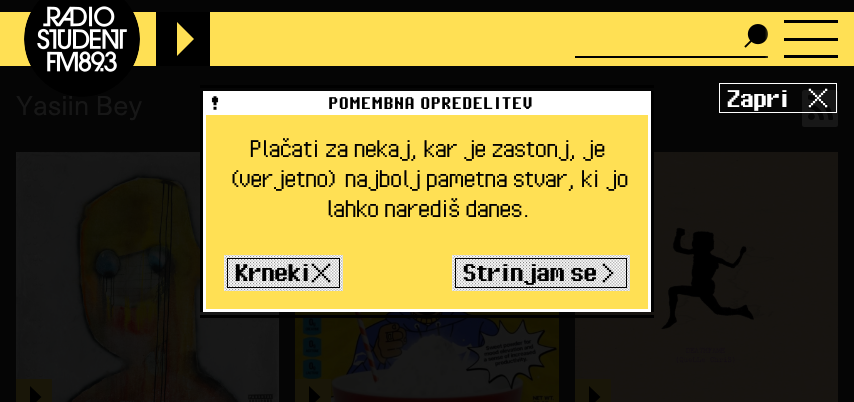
#include "include/core/SkBlurTypes.h"
#include "include/core/SkCanvas.h"
#include "include/core/SkData.h"
#include "include/core/SkFont.h"
#include "include/core/SkFontMgr.h"
#include "include/core/SkImage.h"
#include "include/core/SkMaskFilter.h"
#include "include/core/SkPaint.h"
#include "include/core/SkPathBuilder.h"
#include "include/core/SkTextBlob.h"
#include "include/effects/SkDashPathEffect.h"
#include "include/effects/SkGradientShader.h"
#include "include/utils/SkParsePath.h"

extern sk_sp<SkFontMgr> fontMgr;

void draw(SkCanvas* canvas) {
    SkPaint p;
    p.setAntiAlias(true);
    auto font = [&](const char* family, int weight, float size, bool italic = false) {
        SkFontStyle style(weight, SkFontStyle::kNormal_Width,
            italic ? SkFontStyle::kItalic_Slant : SkFontStyle::kUpright_Slant);
        SkFont result(fontMgr->matchFamilyStyle(family, style), size);
        result.setSubpixel(true);
        return result;
    };
    auto drawTracked = [&](const char* s, float x, float y, const SkFont& font, const SkPaint& ink, float letter, float word) {
        std::vector<SkGlyphID> glyphs(font.countText(s, strlen(s), SkTextEncoding::kUTF8));
        std::vector<float> xs(glyphs.size());
        font.textToGlyphs(s, strlen(s), SkTextEncoding::kUTF8, glyphs);
        font.getXPos(glyphs, xs, x);
        float extra = 0;
        for (size_t i = 0; i < glyphs.size(); i++) {
            xs[i] += extra;
            extra += letter + word * (glyphs[i] == font.unicharToGlyph(' '));
        }
        canvas->drawTextBlob(SkTextBlob::MakeFromPosHGlyphs(glyphs, xs, y, font), 0, 0, ink);
    };
    auto drawPhoto = [&](const char* path, float l, float t, float r, float b) {
        auto image = SkImages::DeferredFromEncodedData(SkData::MakeFromFileName(path));
        canvas->drawImageRect(image, SkRect::MakeLTRB(l, t, r, b), SkSamplingOptions());
    };
    canvas->clear(0xFF050505);
    p.setColor(0xFFFFE054);
    canvas->drawRect(SkRect::MakeLTRB(0, 12, 854, 66), p);
    {
        const SkColor colors[] = {0xFFFFFFFF, 0x00FFFFFF};
        const float stops[] = {0.65f, 0.7f};
        p.setShader(SkGradientShader::MakeRadial({82, 39}, 82, colors, stops, 2, SkTileMode::kClamp));
        p.setAlpha(255);
    }
    canvas->drawRect(SkRect::MakeLTRB(35, 5, 127, 86), p);
    auto font1 = font("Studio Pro", 400, 26);
    p.setShader(nullptr);
    p.setColor(0xFF171717);
    canvas->drawString("Yasiin Bey", 16, 115, font1, p);
    drawPhoto("media/1.png", 24, 0, 140, 97);
    p.setColor(0xFF000000);
    canvas->drawRect(SkRect::MakeLTRB(156, 12, 210, 66), p);
    p.setColor(0xFFFFE054);
    canvas->drawPath(SkPathBuilder(SkPathFillType::kEvenOdd).moveTo(177, 56).lineTo(194, 39).lineTo(177, 22).close().detach(), p);
    drawPhoto("media/2.png", 744, 24, 768, 48);
    p.setColor(0xFF000000);
    canvas->drawRect(SkRect::MakeLTRB(575, 56, 768, 58), p);
    canvas->drawRect(SkRect::MakeLTRB(784, 20, 838, 23), p);
    {
        const SkColor colors[] = {0x00FFE054, 0xFFFFE054};
        const float stops[] = {0.3f, 1};
        const SkPoint ends[] = {{760, 39}, {776, 39}};
        p.setShader(SkGradientShader::MakeLinear(ends, colors, stops, 2, SkTileMode::kClamp));
        p.setAlpha(255);
    }
    canvas->drawRect(SkRect::MakeLTRB(765, 27, 768, 58), p);
    p.setShader(nullptr);
    p.setColor(0xFF000000);
    canvas->drawRect(SkRect::MakeLTRB(784, 38, 838, 41), p);
    canvas->drawRect(SkRect::MakeLTRB(784, 55, 838, 58), p);
    p.setColor(0xFF171717);
    canvas->drawRoundRect(SkRect::MakeLTRB(802, 90, 838, 127), 2.5f, 2.5f, p);
    drawPhoto("media/3.png", 808, 94, 834, 120);
    drawPhoto("media/4.png", 16, 152, 279, 402);
    p.setColor(0xFF191608);
    canvas->drawRect(SkRect::MakeLTRB(16, 379, 52, 402), p);
    p.setColor(0xFF000000);
    canvas->drawPath(SkPathBuilder(SkPathFillType::kEvenOdd).moveTo(30, 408).lineTo(41.5f, 397).lineTo(30, 386).close().detach(), p);
    drawPhoto("media/5.png", 295, 312, 559, 402);
    p.setColor(0xFF191608);
    canvas->drawRect(SkRect::MakeLTRB(295, 379, 331, 402), p);
    p.setColor(0xFF000000);
    canvas->drawPath(SkPathBuilder(SkPathFillType::kEvenOdd).moveTo(309, 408).lineTo(320.5f, 397).lineTo(309, 386).close().detach(), p);
    drawPhoto("media/6.png", 575, 152, 838, 402);
    p.setColor(0xFF191608);
    canvas->drawRect(SkRect::MakeLTRB(575, 379, 611, 402), p);
    p.setColor(0xFF000000);
    canvas->drawPath(SkPathBuilder(SkPathFillType::kEvenOdd).moveTo(589, 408).lineTo(600.5f, 397).lineTo(589, 386).close().detach(), p);
    {
        const struct { float l, t, r, b; SkColor color; } items[] = {
            {200, 85, 654, 88, 0xFF000000},
            {200, 315, 654, 318, 0xFF000000},
            {203, 91, 651, 112, 0xFFFFFFFF},
            {651, 91, 654, 312, 0xFF000000},
            {200, 91, 203, 312, 0xFF000000},
        };
        for (auto [l, t, r, b, color] : items) {
            p.setColor(color);
            canvas->drawRect(SkRect::MakeLTRB(l, t, r, b), p);
        }
    }
    drawPhoto("media/7.png", 211, 96, 219, 110);
    auto font2 = font("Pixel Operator", 700, 21);
    canvas->drawString("POMEMBNA OPREDELITEV", 328, 109, font2, p);
    p.setColor(0xFFFFE054);
    canvas->drawRect(SkRect::MakeLTRB(204.5f, 113.5f, 649.5f, 310.5f), p);
    p.setStyle(SkPaint::kStroke_Style);
    p.setStrokeWidth(3);
    p.setColor(0xFFFFFFFF);
    canvas->drawRect(SkRect::MakeLTRB(204.5f, 113.5f, 649.5f, 310.5f), p);
    auto font3 = font("Pixel Operator", 400, 30);
    p.setStyle(SkPaint::kFill_Style);
    p.setColor(0xFF000000);
    {
        const struct { const char* s; float x, y; } items[] = {
            {"Plačati za nekaj, kar je zastonj, je", 249, 157},
            {"(verjetno) najbolj pametna stvar, ki jo", 227, 187},
            {"lahko narediš danes.", 325, 217},
        };
        for (auto [s, x, y] : items) {
            drawTracked(s, x, y, font3, p, -1.8f, 0);
        }
    }
    drawPhoto("media/8.png", 224, 255, 343, 291);
    p.setStyle(SkPaint::kStroke_Style);
    p.setStrokeWidth(1);
    canvas->drawRect(SkRect::MakeLTRB(227.5f, 258.5f, 339.5f, 287.5f), p);
    auto font4 = font("Pixel Operator", 700, 30);
    p.setStyle(SkPaint::kFill_Style);
    drawTracked("Krneki", 234, 281, font4, p, -1.8f, 0);
    drawPhoto("media/9.png", 311, 263, 331, 283);
    drawPhoto("media/10.png", 452, 255, 630, 291);
    p.setStyle(SkPaint::kStroke_Style);
    canvas->drawRect(SkRect::MakeLTRB(455.5f, 258.5f, 626.5f, 287.5f), p);
    p.setStyle(SkPaint::kFill_Style);
    drawTracked("Strinjam se", 462, 281, font4, p, -1.8f, 0);
    drawPhoto("media/11.png", 602, 263, 614, 283);
    drawPhoto("media/13.png", 808, 88, 828, 108);
    p.setStyle(SkPaint::kStroke_Style);
    p.setColor(0xFFFFFFFF);
    canvas->drawRect(SkRect::MakeLTRB(719.5f, 83.5f, 836.5f, 112.5f), p);
    p.setStyle(SkPaint::kFill_Style);
    p.setColor(0xFF171717);
    drawTracked("Zapri", 726, 107, font4, p, -1.8f, 0);
    p.setColor(0xFFFFFFFF);
    drawTracked("Zapri", 726, 107, font4, p, -1.8f, 0);
    drawPhoto("media/12.png", 808, 88, 828, 108);
}
